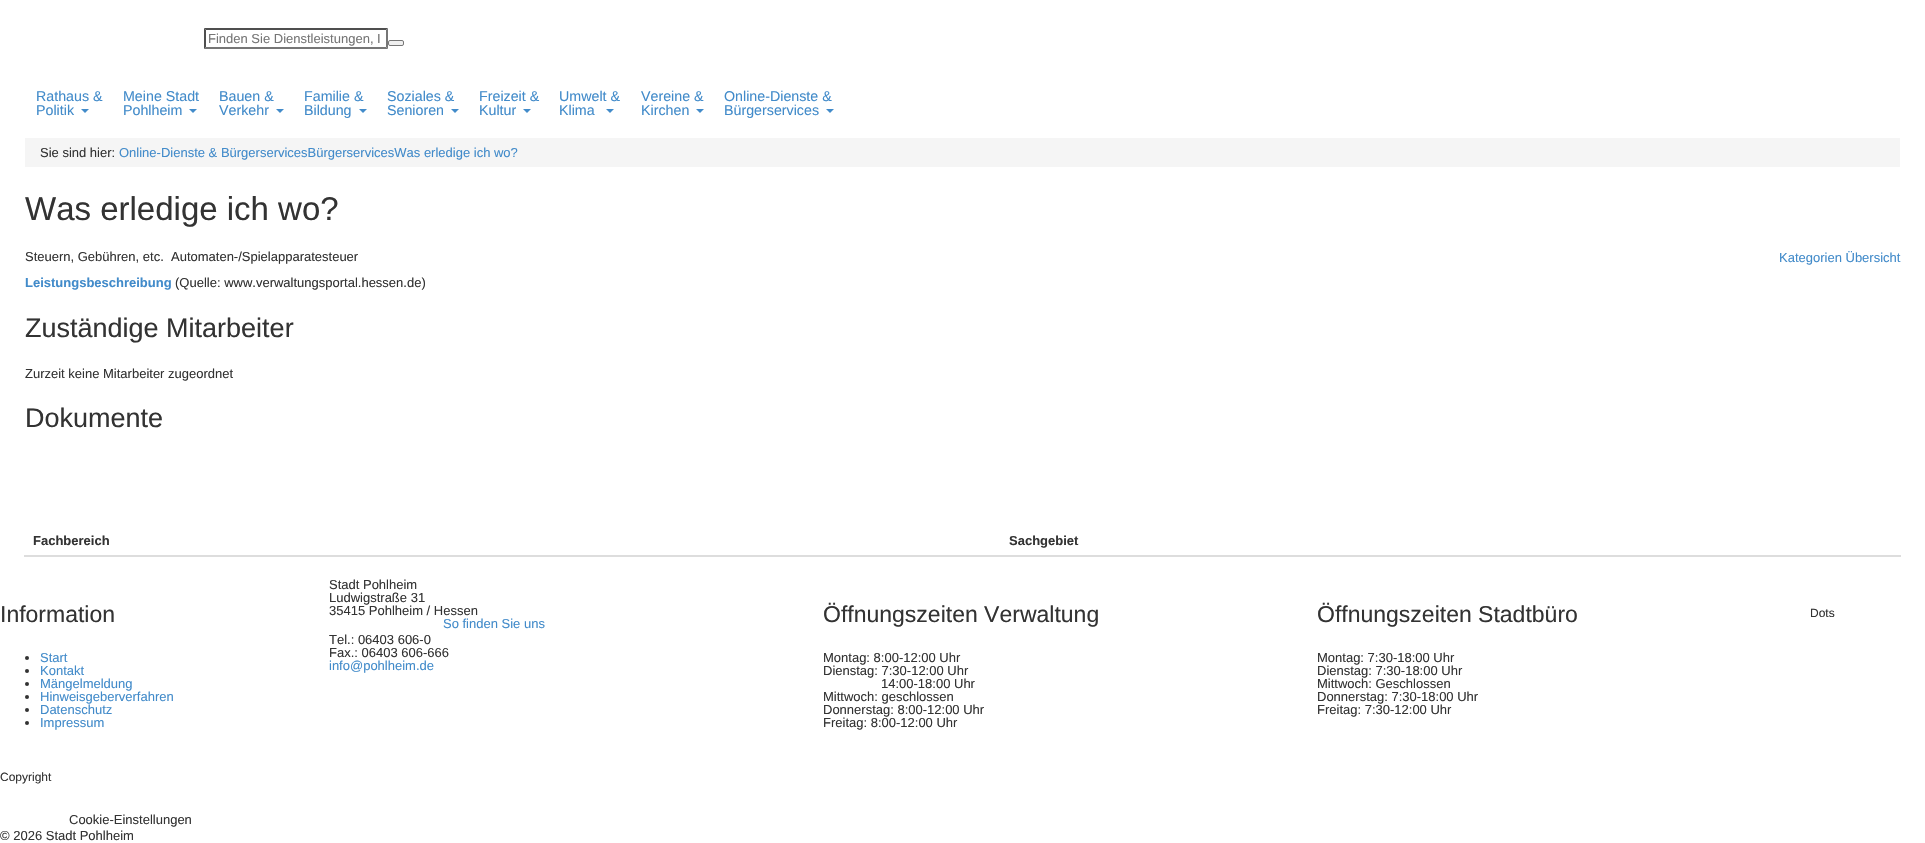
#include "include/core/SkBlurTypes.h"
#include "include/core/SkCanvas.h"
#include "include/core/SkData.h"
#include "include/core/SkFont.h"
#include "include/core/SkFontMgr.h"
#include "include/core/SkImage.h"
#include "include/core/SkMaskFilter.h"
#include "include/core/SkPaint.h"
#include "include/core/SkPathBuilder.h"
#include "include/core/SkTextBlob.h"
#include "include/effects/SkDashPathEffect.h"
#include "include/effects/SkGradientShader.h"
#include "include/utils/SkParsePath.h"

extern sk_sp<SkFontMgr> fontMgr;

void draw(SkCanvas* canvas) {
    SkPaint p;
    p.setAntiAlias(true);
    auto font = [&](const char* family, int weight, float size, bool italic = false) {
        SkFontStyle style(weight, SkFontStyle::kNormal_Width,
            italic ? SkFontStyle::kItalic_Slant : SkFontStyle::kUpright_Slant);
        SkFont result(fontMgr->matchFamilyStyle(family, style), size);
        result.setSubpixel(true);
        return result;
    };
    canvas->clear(0xFFFFFFFF);
    p.setColor(0xFF4F4F4F);
    canvas->drawPath(SkPathBuilder().moveTo(204, 28).lineTo(388, 28).lineTo(386, 30).lineTo(206, 30).close().detach(), p);
    p.setColor(0xFF767676);
    canvas->drawPath(SkPathBuilder().moveTo(388, 28).lineTo(388, 49).lineTo(386, 47).lineTo(386, 30).close().detach(), p);
    canvas->drawPath(SkPathBuilder().moveTo(388, 49).lineTo(204, 49).lineTo(206, 47).lineTo(386, 47).close().detach(), p);
    p.setColor(0xFF4F4F4F);
    canvas->drawPath(SkPathBuilder().moveTo(204, 49).lineTo(204, 28).lineTo(206, 30).lineTo(206, 47).close().detach(), p);
    auto font1 = font("Liberation Sans", 400, 13);
    p.setColor(0xFF757575);
    canvas->drawString("Finden Sie Dienstleistungen, I", 208, 43, font1, p);
    p.setColor(0xFFEFEFEF);
    canvas->drawRoundRect(SkRect::MakeLTRB(388.5f, 40.5f, 403.5f, 45.5f), 1.5f, 1.5f, p);
    p.setStyle(SkPaint::kStroke_Style);
    p.setStrokeWidth(1);
    p.setColor(0xFF767676);
    canvas->drawRoundRect(SkRect::MakeLTRB(388.5f, 40.5f, 403.5f, 45.5f), 1.5f, 1.5f, p);
    auto font2 = font("Liberation Sans", 400, 14.25f);
    p.setStyle(SkPaint::kFill_Style);
    p.setColor(0xFF428BCA);
    canvas->drawString("Rathaus &", 36, 101, font2, p);
    canvas->drawString("Politik", 36, 115, font2, p);
    canvas->drawPath(SkPathBuilder().moveTo(81, 109).lineTo(89, 109).lineTo(85, 113).close().detach(), p);
    canvas->drawString("Meine Stadt", 123, 101, font2, p);
    canvas->drawString("Pohlheim", 123, 115, font2, p);
    canvas->drawPath(SkPathBuilder().moveTo(189, 109).lineTo(197, 109).lineTo(193, 113).close().detach(), p);
    canvas->drawString("Bauen &", 219, 101, font2, p);
    canvas->drawString("Verkehr", 219, 115, font2, p);
    canvas->drawPath(SkPathBuilder().moveTo(276, 109).lineTo(284, 109).lineTo(280, 113).close().detach(), p);
    canvas->drawString("Familie &", 304, 101, font2, p);
    canvas->drawString("Bildung", 304, 115, font2, p);
    canvas->drawPath(SkPathBuilder().moveTo(359, 109).lineTo(367, 109).lineTo(363, 113).close().detach(), p);
    canvas->drawString("Soziales &", 387, 101, font2, p);
    canvas->drawString("Senioren", 387, 115, font2, p);
    canvas->drawPath(SkPathBuilder().moveTo(451, 109).lineTo(459, 109).lineTo(455, 113).close().detach(), p);
    canvas->drawString("Freizeit &", 479, 101, font2, p);
    canvas->drawString("Kultur", 479, 115, font2, p);
    canvas->drawPath(SkPathBuilder().moveTo(523, 109).lineTo(531, 109).lineTo(527, 113).close().detach(), p);
    canvas->drawString("Umwelt &", 559, 101, font2, p);
    canvas->drawString("Klima", 559, 115, font2, p);
    canvas->drawPath(SkPathBuilder().moveTo(606, 109).lineTo(614, 109).lineTo(610, 113).close().detach(), p);
    canvas->drawString("Vereine &", 641, 101, font2, p);
    canvas->drawString("Kirchen", 641, 115, font2, p);
    canvas->drawPath(SkPathBuilder().moveTo(696, 109).lineTo(704, 109).lineTo(700, 113).close().detach(), p);
    canvas->drawString("Online-Dienste &", 724, 101, font2, p);
    canvas->drawString("Bürgerservices", 724, 115, font2, p);
    canvas->drawPath(SkPathBuilder().moveTo(826, 109).lineTo(834, 109).lineTo(830, 113).close().detach(), p);
    p.setColor(0xFFF5F5F5);
    canvas->drawRect(SkRect::MakeLTRB(25, 138, 1900, 167), p);
    p.setColor(0xFF333333);
    canvas->drawString("Sie sind hier:", 40, 157, font1, p);
    p.setColor(0xFF428BCA);
    canvas->drawString("Online-Dienste & BürgerservicesBürgerservicesWas erledige ich wo?", 119, 157, font1, p);
    auto font3 = font("Liberation Sans", 400, 33);
    p.setColor(0xFF333333);
    canvas->drawString("Was erledige ich wo?", 25, 220, font3, p);
    canvas->drawString("Steuern, Gebühren, etc.", 25, 261, font1, p);
    canvas->drawString("Automaten-/Spielapparatesteuer", 171, 261, font1, p);
    p.setColor(0xFF428BCA);
    canvas->drawString("Kategorien Übersicht", 1779, 262, font1, p);
    auto font4 = font("Liberation Sans", 700, 13);
    canvas->drawString("Leistungsbeschreibung", 25, 287, font4, p);
    p.setColor(0xFF333333);
    canvas->drawString("(Quelle: www.verwaltungsportal.hessen.de)", 175, 287, font1, p);
    auto font5 = font("Liberation Sans", 400, 27);
    canvas->drawString("Zuständige Mitarbeiter", 25, 337, font5, p);
    canvas->drawString("Zurzeit keine Mitarbeiter zugeordnet", 25, 378, font1, p);
    canvas->drawString("Dokumente", 25, 427, font5, p);
    canvas->drawString("Fachbereich", 33, 545, font4, p);
    p.setColor(0xFFDDDDDD);
    canvas->drawRect(SkRect::MakeLTRB(24, 555, 1901, 557), p);
    p.setColor(0xFF333333);
    canvas->drawString("Sachgebiet", 1009, 545, font4, p);
    auto font6 = font("Liberation Sans", 400, 23);
    canvas->drawString("Information", 0, 622, font6, p);
    canvas->drawCircle(27, 658, 2, p);
    p.setColor(0xFF428BCA);
    canvas->drawString("Start", 40, 662, font1, p);
    p.setColor(0xFF333333);
    canvas->drawCircle(27, 671, 2, p);
    p.setColor(0xFF428BCA);
    canvas->drawString("Kontakt", 40, 675, font1, p);
    p.setColor(0xFF333333);
    canvas->drawCircle(27, 684, 2, p);
    p.setColor(0xFF428BCA);
    canvas->drawString("Mängelmeldung", 40, 688, font1, p);
    p.setColor(0xFF333333);
    canvas->drawCircle(27, 697, 2, p);
    p.setColor(0xFF428BCA);
    canvas->drawString("Hinweisgeberverfahren", 40, 701, font1, p);
    p.setColor(0xFF333333);
    canvas->drawCircle(27, 710, 2, p);
    p.setColor(0xFF428BCA);
    canvas->drawString("Datenschutz", 40, 714, font1, p);
    p.setColor(0xFF333333);
    canvas->drawCircle(27, 723, 2, p);
    p.setColor(0xFF428BCA);
    canvas->drawString("Impressum", 40, 727, font1, p);
    p.setColor(0xFF333333);
    {
        const struct { const char* s; float x, y; } items[] = {
            {"Stadt Pohlheim", 329, 589},
            {"Ludwigstraße 31", 329, 602},
            {"35415 Pohlheim / Hessen", 329, 615},
        };
        for (auto [s, x, y] : items) {
            canvas->drawString(s, x, y, font1, p);
        }
    }
    p.setColor(0xFF428BCA);
    canvas->drawString("So finden Sie uns", 443, 628, font1, p);
    p.setColor(0xFF333333);
    canvas->drawString("Tel.: 06403 606-0", 329, 644, font1, p);
    canvas->drawString("Fax.: 06403 606-666", 329, 657, font1, p);
    p.setColor(0xFF428BCA);
    canvas->drawString("info@pohlheim.de", 329, 670, font1, p);
    p.setColor(0xFF333333);
    canvas->drawString("Öffnungszeiten Verwaltung", 823, 622, font6, p);
    {
        const struct { const char* s; float x, y; } items[] = {
            {"Montag: 8:00-12:00 Uhr", 823, 662},
            {"Dienstag: 7:30-12:00 Uhr", 823, 675},
            {"14:00-18:00 Uhr", 881, 688},
            {"Mittwoch: geschlossen", 823, 701},
            {"Donnerstag: 8:00-12:00 Uhr", 823, 714},
            {"Freitag: 8:00-12:00 Uhr", 823, 727},
        };
        for (auto [s, x, y] : items) {
            canvas->drawString(s, x, y, font1, p);
        }
    }
    canvas->drawString("Öffnungszeiten Stadtbüro", 1317, 622, font6, p);
    {
        const struct { const char* s; float x, y; } items[] = {
            {"Montag: 7:30-18:00 Uhr", 1317, 662},
            {"Dienstag: 7:30-18:00 Uhr", 1317, 675},
            {"Mittwoch: Geschlossen", 1317, 688},
            {"Donnerstag: 7:30-18:00 Uhr", 1317, 701},
            {"Freitag: 7:30-12:00 Uhr", 1317, 714},
        };
        for (auto [s, x, y] : items) {
            canvas->drawString(s, x, y, font1, p);
        }
    }
    auto font7 = font("Liberation Sans", 400, 12);
    canvas->drawString("Dots", 1810, 617, font7, p);
    canvas->drawString("Copyright", 0, 781, font7, p);
    canvas->drawString("Cookie-Einstellungen", 69, 824, font1, p);
    canvas->drawString("© 2026 Stadt Pohlheim", 0, 840, font1, p);
}
